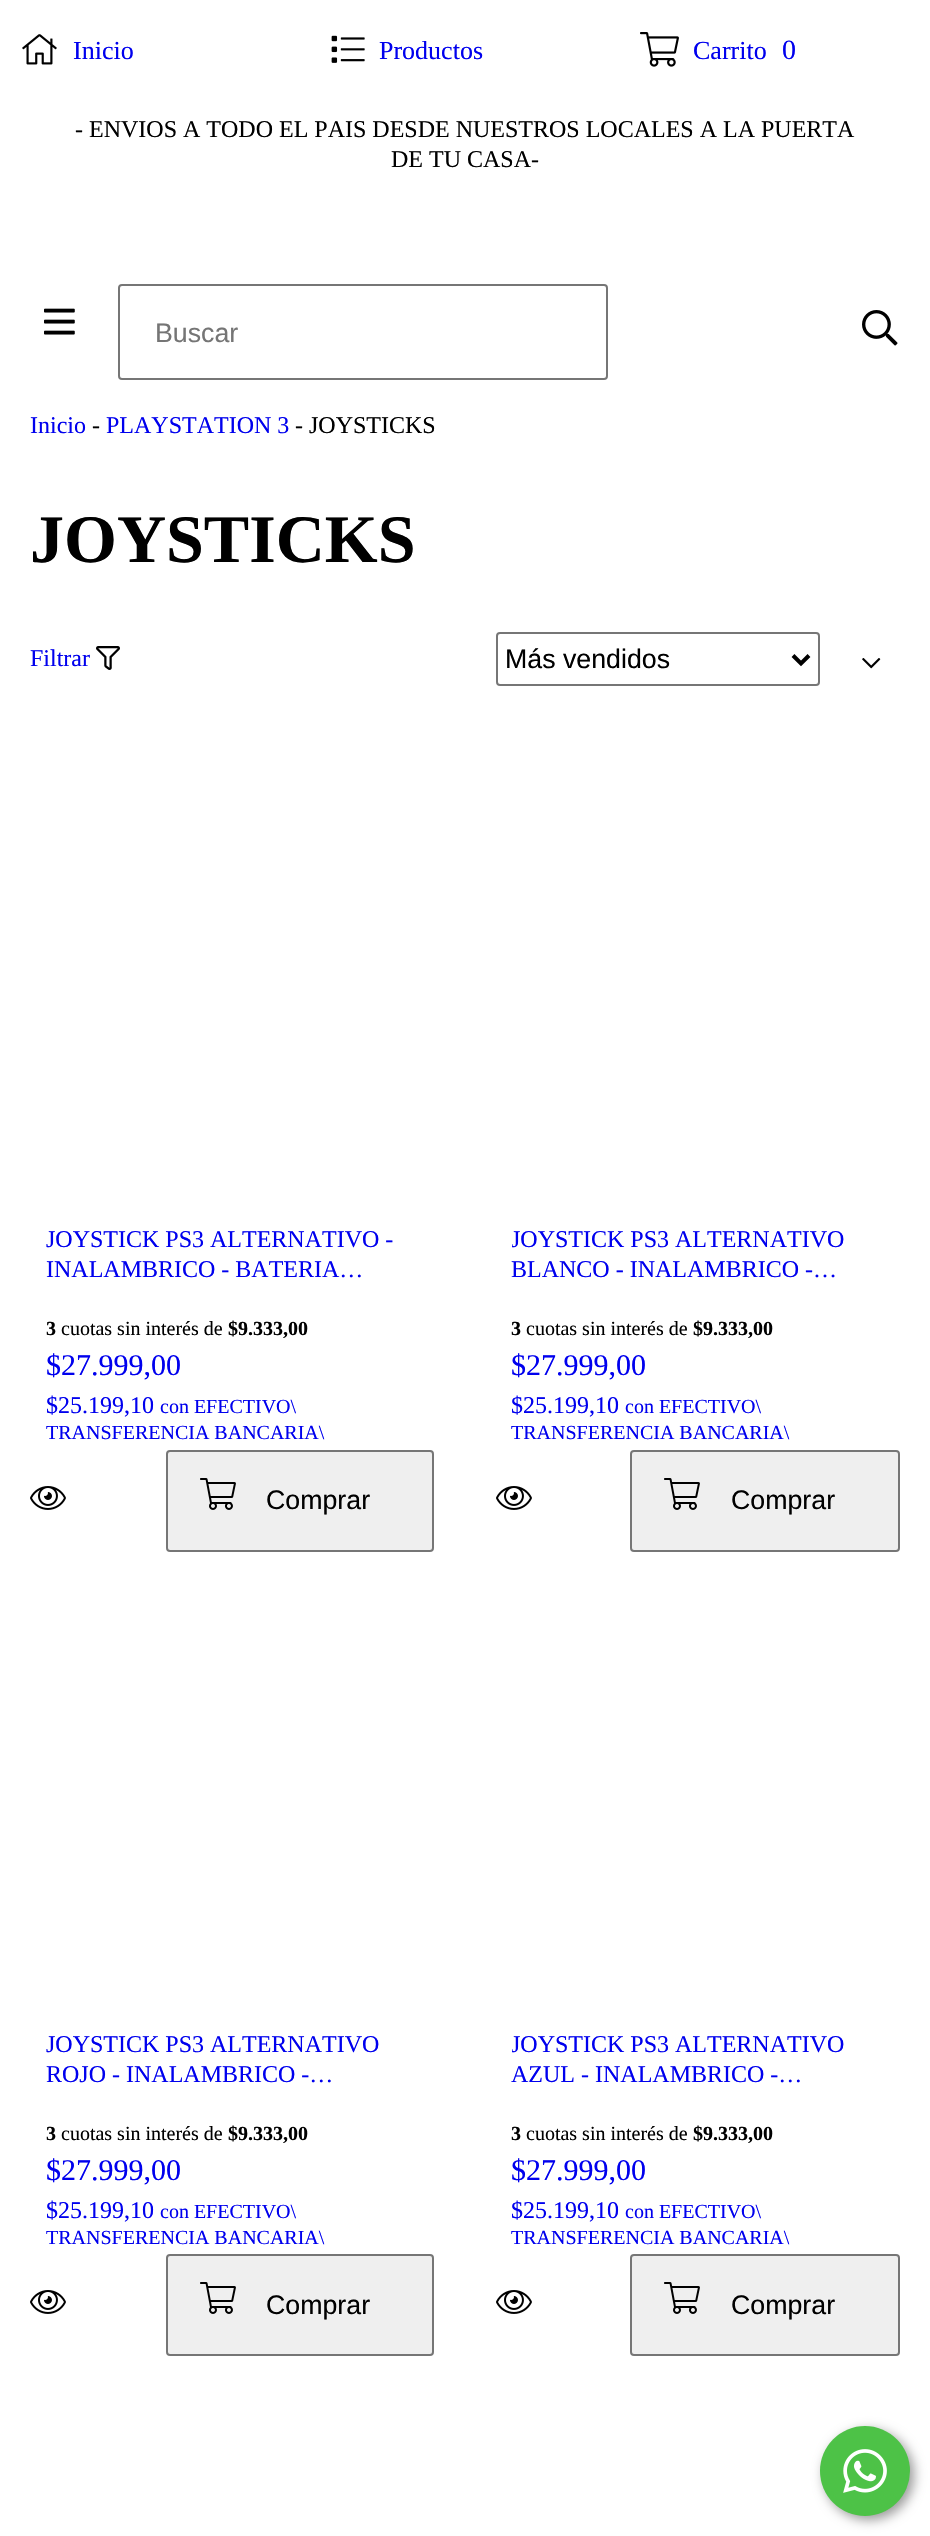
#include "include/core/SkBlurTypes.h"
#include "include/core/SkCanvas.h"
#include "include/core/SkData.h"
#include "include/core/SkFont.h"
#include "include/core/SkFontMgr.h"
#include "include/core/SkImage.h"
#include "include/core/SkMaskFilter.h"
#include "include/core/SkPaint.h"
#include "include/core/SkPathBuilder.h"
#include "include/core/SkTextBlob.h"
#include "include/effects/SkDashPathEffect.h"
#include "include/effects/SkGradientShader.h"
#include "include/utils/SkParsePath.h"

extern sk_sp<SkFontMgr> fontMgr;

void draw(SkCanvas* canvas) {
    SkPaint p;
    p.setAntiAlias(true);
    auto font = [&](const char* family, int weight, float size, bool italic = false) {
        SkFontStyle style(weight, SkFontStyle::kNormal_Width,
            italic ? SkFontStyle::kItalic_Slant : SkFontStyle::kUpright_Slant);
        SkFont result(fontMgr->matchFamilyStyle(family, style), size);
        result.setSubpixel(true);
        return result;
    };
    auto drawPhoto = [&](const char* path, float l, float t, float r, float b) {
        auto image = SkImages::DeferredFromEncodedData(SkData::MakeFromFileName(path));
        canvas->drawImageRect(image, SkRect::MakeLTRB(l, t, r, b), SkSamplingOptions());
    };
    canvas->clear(0xFFFFFFFF);
    drawPhoto("media/1.png", 22, 34, 57, 65);
    auto font1 = font("Liberation Serif", 400, 26);
    p.setColor(0xFF0000EE);
    canvas->drawString("Inicio", 73, 59, font1, p);
    drawPhoto("media/2.png", 331, 35, 365, 63);
    canvas->drawString("Productos", 379, 59, font1, p);
    drawPhoto("media/3.png", 640, 32, 679, 67);
    canvas->drawString("Carrito", 693, 59, font1, p);
    auto font2 = font("Liberation Serif", 400, 28);
    canvas->drawString("0", 782, 59, font2, p);
    auto font3 = font("Liberation Serif", 400, 24);
    p.setColor(0xFF000000);
    canvas->drawString("- ENVIOS A TODO EL PAIS DESDE NUESTROS LOCALES A LA PUERTA", 75, 137, font3, p);
    canvas->drawString("DE TU CASA-", 391, 167, font3, p);
    drawPhoto("media/4.png", 44, 308, 75, 335);
    p.setStyle(SkPaint::kStroke_Style);
    p.setStrokeWidth(2);
    p.setColor(0xFF767676);
    canvas->drawRoundRect(SkRect::MakeLTRB(119, 285, 607, 379), 3, 3, p);
    auto font4 = font("Liberation Sans", 400, 26.75f);
    p.setStyle(SkPaint::kFill_Style);
    p.setColor(0xFF757575);
    canvas->drawString("Buscar", 155, 342, font4, p);
    drawPhoto("media/5.png", 862, 310, 898, 346);
    p.setColor(0xFF0000EE);
    canvas->drawString("Inicio", 30, 433, font3, p);
    p.setColor(0xFF000000);
    canvas->drawString("-", 92, 433, font3, p);
    p.setColor(0xFF0000EE);
    canvas->drawString("PLAYSTATION 3", 106, 433, font3, p);
    p.setColor(0xFF000000);
    canvas->drawString("- JOYSTICKS", 295, 433, font3, p);
    auto font5 = font("Liberation Serif", 700, 68);
    canvas->drawString("JOYSTICKS", 30, 562, font5, p);
    p.setColor(0xFF0000EE);
    canvas->drawString("Filtrar", 30, 666, font3, p);
    drawPhoto("media/6.png", 96, 646, 120, 670);
    p.setStyle(SkPaint::kStroke_Style);
    p.setColor(0xFF767676);
    canvas->drawRoundRect(SkRect::MakeLTRB(497, 633, 819, 685), 3, 3, p);
    p.setStrokeWidth(4);
    p.setColor(0xFF000000);
    canvas->drawPath(SkPathBuilder().moveTo(793, 655.5f).lineTo(801, 663.5f).lineTo(809, 655.5f).detach(), p);
    p.setStyle(SkPaint::kFill_Style);
    canvas->drawString("Más vendidos", 505, 668, font4, p);
    drawPhoto("media/7.png", 862, 658, 881, 669);
    p.setColor(0xFF0000EE);
    canvas->drawString("JOYSTICK PS3 ALTERNATIVO -", 46, 1247, font3, p);
    canvas->drawString("INALAMBRICO - BATERIA…", 46, 1277, font3, p);
    auto font6 = font("Liberation Serif", 700, 20);
    p.setColor(0xFF000000);
    canvas->drawString("3", 46, 1335, font6, p);
    auto font7 = font("Liberation Serif", 400, 20);
    canvas->drawString("cuotas sin interés de", 61, 1335, font7, p);
    canvas->drawString("$9.333,00", 228, 1335, font6, p);
    auto font8 = font("Liberation Serif", 400, 30);
    p.setColor(0xFF0000EE);
    canvas->drawString("$27.999,00", 46, 1375, font8, p);
    canvas->drawString("$25.199,10", 46, 1413, font3, p);
    canvas->drawString("con EFECTIVO\\", 160, 1413, font7, p);
    canvas->drawString("TRANSFERENCIA BANCARIA\\", 46, 1439, font7, p);
    drawPhoto("media/8.png", 30, 1486, 66, 1510);
    p.setColor(0xFFEFEFEF);
    canvas->drawRoundRect(SkRect::MakeLTRB(167, 1451, 433, 1551), 3, 3, p);
    p.setStyle(SkPaint::kStroke_Style);
    p.setStrokeWidth(2);
    p.setColor(0xFF767676);
    canvas->drawRoundRect(SkRect::MakeLTRB(167, 1451, 433, 1551), 3, 3, p);
    drawPhoto("media/9.png", 200, 1478, 236, 1510);
    p.setStyle(SkPaint::kFill_Style);
    p.setColor(0xFF000000);
    canvas->drawString("Comprar", 266, 1509, font4, p);
    canvas->save();
    canvas->clipRect(SkRect::MakeLTRB(512, 1226, 884, 1286));
    p.setColor(0xFF0000EE);
    canvas->drawString("JOYSTICK PS3 ALTERNATIVO", 511, 1247, font3, p);
    canvas->restore();
    canvas->drawString("BLANCO - INALAMBRICO -…", 511, 1277, font3, p);
    p.setColor(0xFF000000);
    canvas->drawString("3", 511, 1335, font6, p);
    canvas->drawString("cuotas sin interés de", 526, 1335, font7, p);
    canvas->drawString("$9.333,00", 693, 1335, font6, p);
    p.setColor(0xFF0000EE);
    canvas->drawString("$27.999,00", 511, 1375, font8, p);
    canvas->drawString("$25.199,10", 511, 1413, font3, p);
    canvas->drawString("con EFECTIVO\\", 625, 1413, font7, p);
    canvas->drawString("TRANSFERENCIA BANCARIA\\", 511, 1439, font7, p);
    drawPhoto("media/8.png", 496, 1486, 532, 1510);
    p.setColor(0xFFEFEFEF);
    canvas->drawRoundRect(SkRect::MakeLTRB(631, 1451, 899, 1551), 3, 3, p);
    p.setStyle(SkPaint::kStroke_Style);
    p.setColor(0xFF767676);
    canvas->drawRoundRect(SkRect::MakeLTRB(631, 1451, 899, 1551), 3, 3, p);
    drawPhoto("media/9.png", 664, 1478, 700, 1510);
    p.setStyle(SkPaint::kFill_Style);
    p.setColor(0xFF000000);
    canvas->drawString("Comprar", 731, 1509, font4, p);
    p.setColor(0xFF0000EE);
    canvas->drawString("JOYSTICK PS3 ALTERNATIVO", 46, 2052, font3, p);
    canvas->drawString("ROJO - INALAMBRICO -…", 46, 2082, font3, p);
    p.setColor(0xFF000000);
    canvas->drawString("3", 46, 2140, font6, p);
    canvas->drawString("cuotas sin interés de", 61, 2140, font7, p);
    canvas->drawString("$9.333,00", 228, 2140, font6, p);
    p.setColor(0xFF0000EE);
    canvas->drawString("$27.999,00", 46, 2180, font8, p);
    canvas->drawString("$25.199,10", 46, 2218, font3, p);
    canvas->drawString("con EFECTIVO\\", 160, 2218, font7, p);
    canvas->drawString("TRANSFERENCIA BANCARIA\\", 46, 2244, font7, p);
    drawPhoto("media/8.png", 30, 2290, 66, 2314);
    p.setColor(0xFFEFEFEF);
    canvas->drawRoundRect(SkRect::MakeLTRB(167, 2255, 433, 2355), 3, 3, p);
    p.setStyle(SkPaint::kStroke_Style);
    p.setColor(0xFF767676);
    canvas->drawRoundRect(SkRect::MakeLTRB(167, 2255, 433, 2355), 3, 3, p);
    drawPhoto("media/9.png", 200, 2282, 236, 2314);
    p.setStyle(SkPaint::kFill_Style);
    p.setColor(0xFF000000);
    canvas->drawString("Comprar", 266, 2314, font4, p);
    canvas->save();
    canvas->clipRect(SkRect::MakeLTRB(512, 2030, 884, 2090));
    p.setColor(0xFF0000EE);
    canvas->drawString("JOYSTICK PS3 ALTERNATIVO", 511, 2052, font3, p);
    canvas->restore();
    canvas->drawString("AZUL - INALAMBRICO -…", 511, 2082, font3, p);
    p.setColor(0xFF000000);
    canvas->drawString("3", 511, 2140, font6, p);
    canvas->drawString("cuotas sin interés de", 526, 2140, font7, p);
    canvas->drawString("$9.333,00", 693, 2140, font6, p);
    p.setColor(0xFF0000EE);
    canvas->drawString("$27.999,00", 511, 2180, font8, p);
    canvas->drawString("$25.199,10", 511, 2218, font3, p);
    canvas->drawString("con EFECTIVO\\", 625, 2218, font7, p);
    canvas->drawString("TRANSFERENCIA BANCARIA\\", 511, 2244, font7, p);
    drawPhoto("media/8.png", 496, 2290, 532, 2314);
    p.setColor(0xFFEFEFEF);
    canvas->drawRoundRect(SkRect::MakeLTRB(631, 2255, 899, 2355), 3, 3, p);
    p.setStyle(SkPaint::kStroke_Style);
    p.setColor(0xFF767676);
    canvas->drawRoundRect(SkRect::MakeLTRB(631, 2255, 899, 2355), 3, 3, p);
    drawPhoto("media/9.png", 664, 2282, 700, 2314);
    p.setStyle(SkPaint::kFill_Style);
    p.setColor(0xFF000000);
    canvas->drawString("Comprar", 731, 2314, font4, p);
    p.setColor(0x66000000);
    p.setMaskFilter(SkMaskFilter::MakeBlur(kNormal_SkBlurStyle, 6));
    canvas->drawRoundRect(SkRect::MakeLTRB(824, 2430, 914, 2520), 45, 45, p);
    p.setMaskFilter(nullptr);
    p.setColor(0xFF4DC247);
    canvas->drawCircle(865, 2471, 45, p);
    drawPhoto("media/10.png", 843, 2449, 887, 2493);
}
